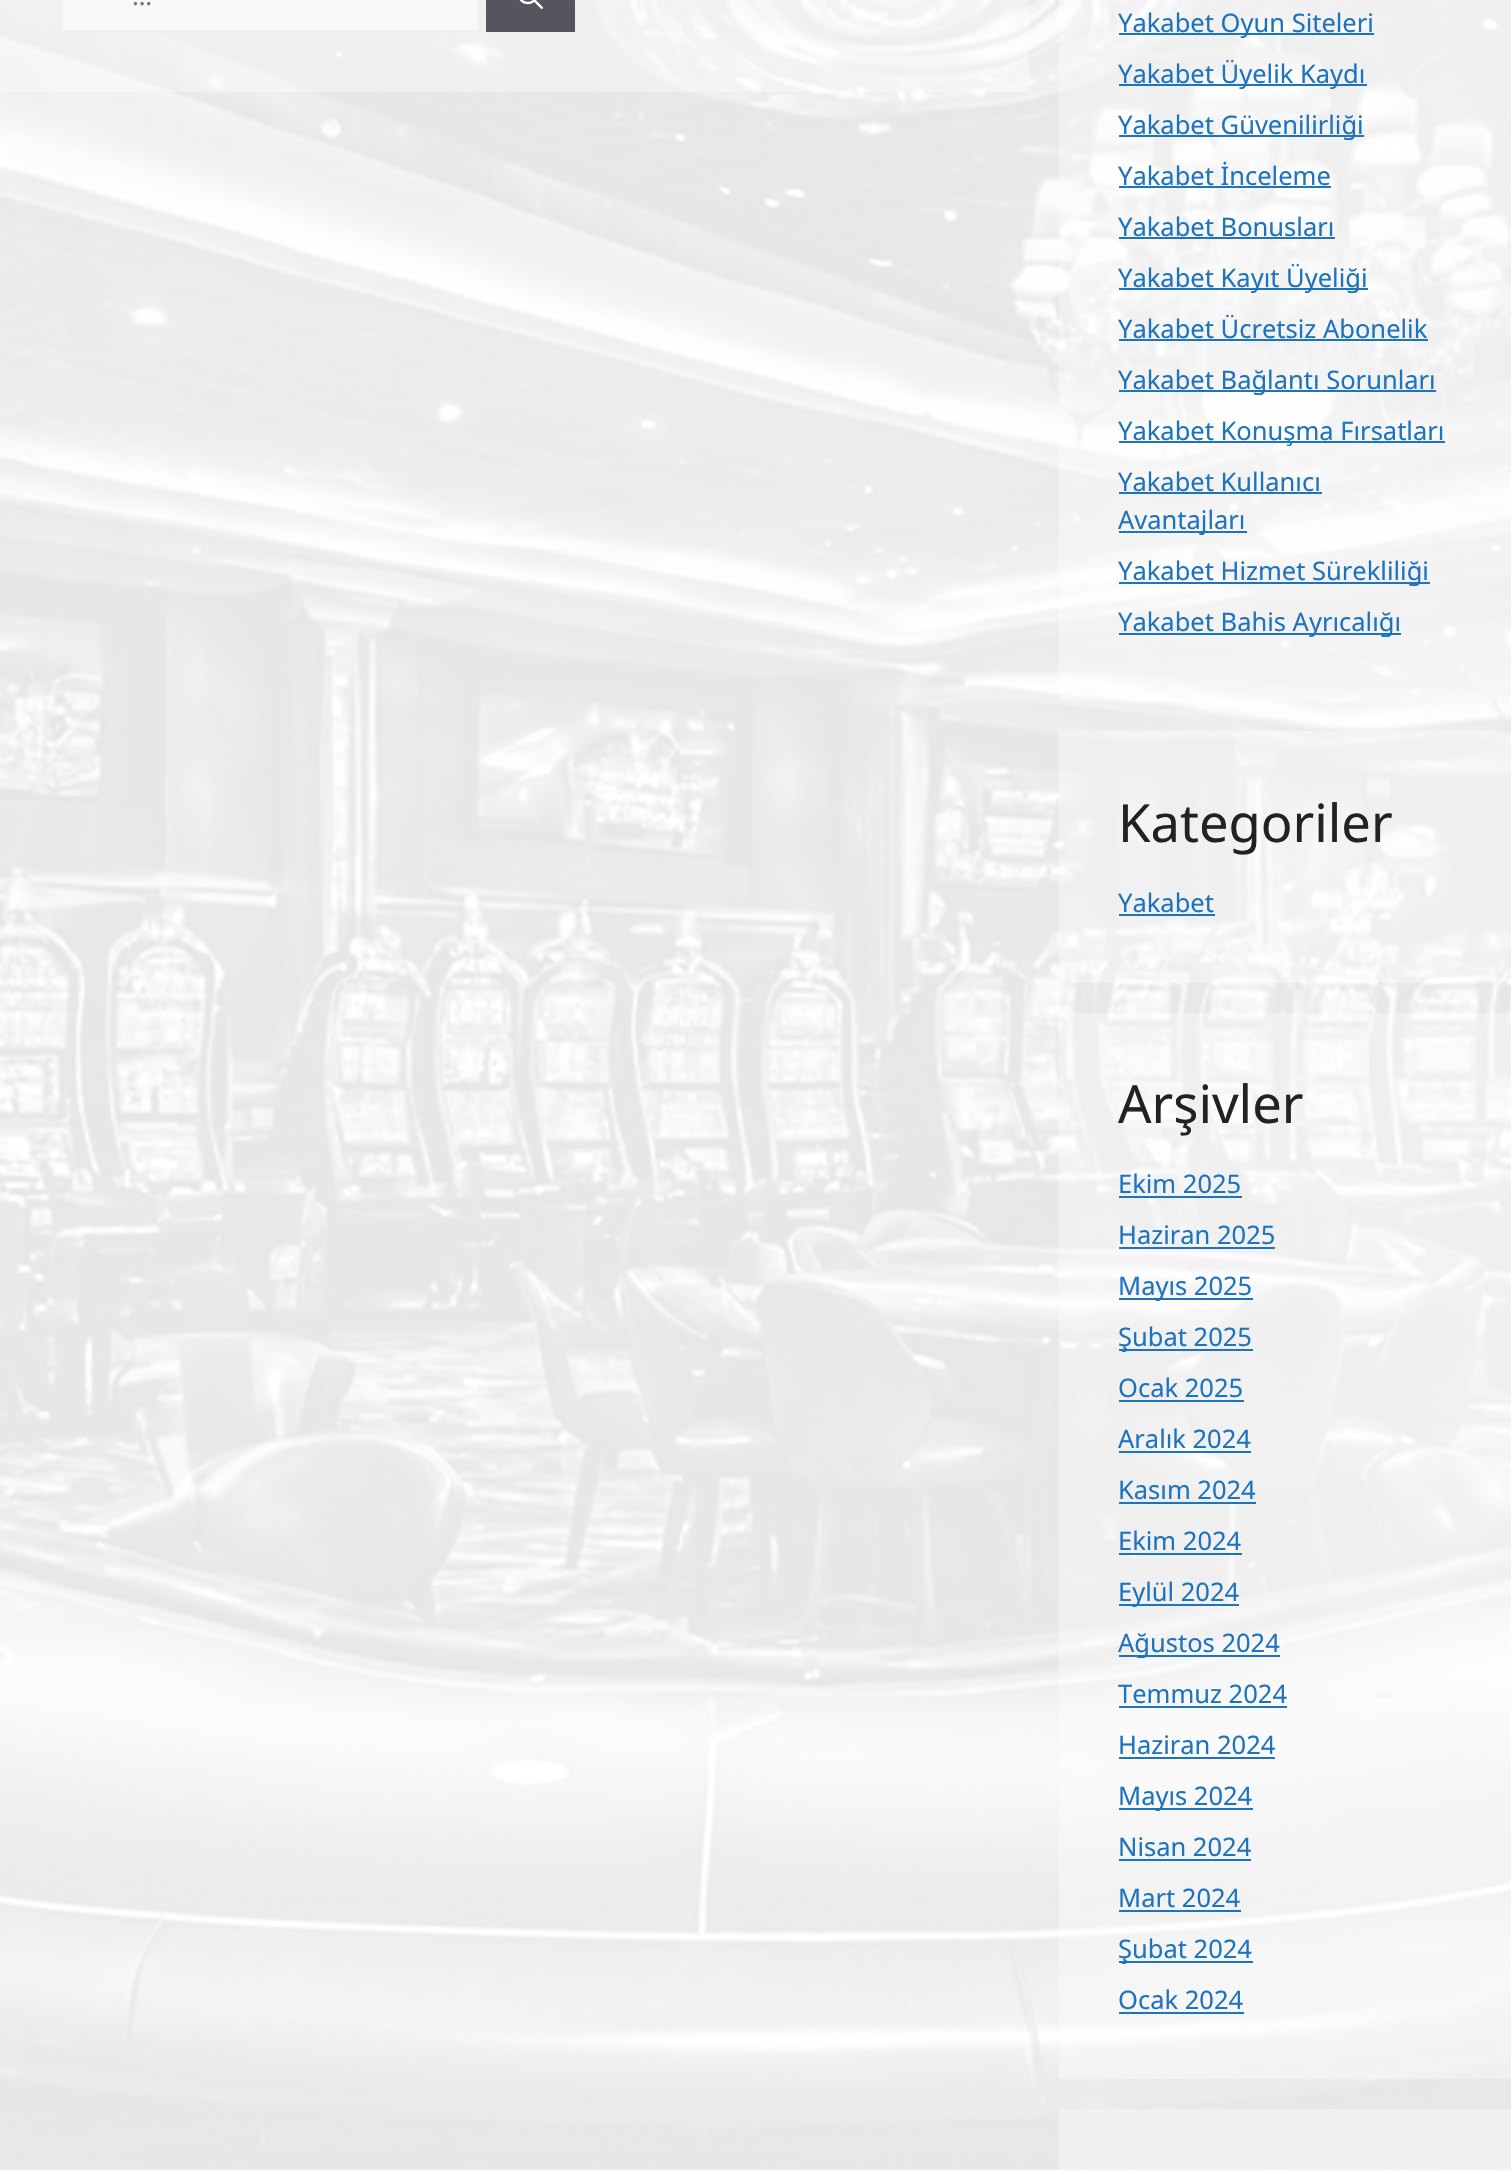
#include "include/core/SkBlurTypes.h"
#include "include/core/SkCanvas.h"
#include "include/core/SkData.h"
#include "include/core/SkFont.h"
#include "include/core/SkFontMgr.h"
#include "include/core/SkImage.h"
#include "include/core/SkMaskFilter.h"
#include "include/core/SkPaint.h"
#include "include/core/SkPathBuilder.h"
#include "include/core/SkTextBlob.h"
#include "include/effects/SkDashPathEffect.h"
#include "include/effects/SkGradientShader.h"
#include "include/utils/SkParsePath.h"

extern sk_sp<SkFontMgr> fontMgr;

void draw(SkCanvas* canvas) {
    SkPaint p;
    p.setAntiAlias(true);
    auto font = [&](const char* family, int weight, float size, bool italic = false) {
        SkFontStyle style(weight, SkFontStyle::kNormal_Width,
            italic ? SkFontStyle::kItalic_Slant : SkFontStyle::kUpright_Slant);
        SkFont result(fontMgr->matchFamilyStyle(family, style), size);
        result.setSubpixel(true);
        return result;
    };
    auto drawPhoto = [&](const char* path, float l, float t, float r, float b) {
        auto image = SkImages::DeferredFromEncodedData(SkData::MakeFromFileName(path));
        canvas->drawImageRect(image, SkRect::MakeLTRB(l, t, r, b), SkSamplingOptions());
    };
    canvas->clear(0xFFFFFFFF);
    drawPhoto("media/1.png", 0, 0, 1511, 2172);
    p.setColor(0x59FFFFFF);
    canvas->drawRect(SkRect::MakeLTRB(0, 0, 1029, 92), p);
    p.setColor(0xFFF7F8F9);
    canvas->drawRect(SkRect::MakeLTRB(61, -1, 479, 31), p);
    p.setStyle(SkPaint::kStroke_Style);
    p.setStrokeWidth(2);
    p.setColor(0xFFF0F0F0);
    canvas->drawRect(SkRect::MakeLTRB(61, -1, 479, 31), p);
    auto font1 = font("Noto Sans", 400, 25.5f);
    p.setStyle(SkPaint::kFill_Style);
    p.setColor(0xFF757575);
    canvas->drawString("…", 132, 5, font1, p);
    p.setColor(0xFF55555E);
    canvas->drawRect(SkRect::MakeLTRB(486, 0, 575, 32), p);
    drawPhoto("media/2.png", 519, 0, 543, 9);
    p.setColor(0x59FFFFFF);
    canvas->drawRect(SkRect::MakeLTRB(1059, 0, 1511, 701), p);
    p.setColor(0xFF1E73BE);
    canvas->drawRect(SkRect::MakeLTRB(1119, 33, 1374, 35), p);
    canvas->drawString("Yakabet Oyun Siteleri", 1118, 32, font1, p);
    canvas->drawRect(SkRect::MakeLTRB(1119, 84, 1367, 86), p);
    canvas->drawString("Yakabet Üyelik Kaydı", 1118, 83, font1, p);
    canvas->drawRect(SkRect::MakeLTRB(1119, 135, 1364, 137), p);
    canvas->drawString("Yakabet Güvenilirliği", 1118, 134, font1, p);
    canvas->drawString("Yakabet İnceleme", 1118, 185, font1, p);
    canvas->drawRect(SkRect::MakeLTRB(1119, 186, 1331, 188), p);
    canvas->drawString("Yakabet Bonusları", 1118, 236, font1, p);
    canvas->drawRect(SkRect::MakeLTRB(1119, 237, 1335, 239), p);
    canvas->drawRect(SkRect::MakeLTRB(1119, 288, 1368, 290), p);
    canvas->drawString("Yakabet Kayıt Üyeliği", 1118, 287, font1, p);
    canvas->drawString("Yakabet Ücretsiz Abonelik", 1118, 338, font1, p);
    canvas->drawRect(SkRect::MakeLTRB(1119, 339, 1428, 341), p);
    canvas->drawRect(SkRect::MakeLTRB(1119, 390, 1436, 392), p);
    canvas->drawString("Yakabet Bağlantı Sorunları", 1118, 389, font1, p);
    canvas->drawRect(SkRect::MakeLTRB(1119, 441, 1445, 443), p);
    canvas->drawString("Yakabet Konuşma Fırsatları", 1118, 440, font1, p);
    canvas->drawString("Yakabet Kullanıcı", 1118, 491, font1, p);
    canvas->drawRect(SkRect::MakeLTRB(1119, 492, 1322, 494), p);
    canvas->drawRect(SkRect::MakeLTRB(1119, 531, 1247, 533), p);
    canvas->drawString("Avantajları", 1118, 529, font1, p);
    canvas->drawRect(SkRect::MakeLTRB(1119, 582, 1430, 584), p);
    canvas->drawString("Yakabet Hizmet Sürekliliği", 1118, 580, font1, p);
    canvas->drawRect(SkRect::MakeLTRB(1119, 633, 1401, 635), p);
    canvas->drawString("Yakabet Bahis Ayrıcalığı", 1118, 631, font1, p);
    p.setColor(0x59FFFFFF);
    canvas->drawRect(SkRect::MakeLTRB(1059, 731, 1511, 983), p);
    auto font2 = font("Noto Sans", 400, 52.5f);
    p.setColor(0xFF222222);
    canvas->drawString("Kategoriler", 1118, 842, font2, p);
    p.setColor(0xFF1E73BE);
    canvas->drawString("Yakabet", 1118, 912, font1, p);
    canvas->drawRect(SkRect::MakeLTRB(1119, 914, 1215, 916), p);
    p.setColor(0x59FFFFFF);
    canvas->drawRect(SkRect::MakeLTRB(1059, 1013, 1511, 2079), p);
    p.setColor(0xFF222222);
    canvas->drawString("Arşivler", 1118, 1123, font2, p);
    p.setColor(0xFF1E73BE);
    canvas->drawString("Ekim 2025", 1118, 1193, font1, p);
    canvas->drawRect(SkRect::MakeLTRB(1119, 1196, 1242, 1198), p);
    canvas->drawString("Haziran 2025", 1118, 1244, font1, p);
    canvas->drawRect(SkRect::MakeLTRB(1119, 1247, 1275, 1249), p);
    canvas->drawRect(SkRect::MakeLTRB(1119, 1298, 1253, 1300), p);
    canvas->drawString("Mayıs 2025", 1118, 1295, font1, p);
    canvas->drawRect(SkRect::MakeLTRB(1119, 1349, 1253, 1351), p);
    canvas->drawString("Şubat 2025", 1118, 1346, font1, p);
    canvas->drawString("Ocak 2025", 1118, 1397, font1, p);
    canvas->drawRect(SkRect::MakeLTRB(1119, 1400, 1244, 1402), p);
    canvas->drawString("Aralık 2024", 1118, 1448, font1, p);
    canvas->drawRect(SkRect::MakeLTRB(1119, 1451, 1251, 1453), p);
    canvas->drawString("Kasım 2024", 1118, 1499, font1, p);
    canvas->drawRect(SkRect::MakeLTRB(1119, 1502, 1256, 1504), p);
    canvas->drawString("Ekim 2024", 1118, 1550, font1, p);
    canvas->drawRect(SkRect::MakeLTRB(1119, 1553, 1242, 1555), p);
    canvas->drawRect(SkRect::MakeLTRB(1119, 1604, 1239, 1606), p);
    canvas->drawString("Eylül 2024", 1118, 1601, font1, p);
    canvas->drawRect(SkRect::MakeLTRB(1119, 1655, 1280, 1657), p);
    canvas->drawString("Ağustos 2024", 1118, 1652, font1, p);
    canvas->drawString("Temmuz 2024", 1118, 1703, font1, p);
    canvas->drawRect(SkRect::MakeLTRB(1119, 1706, 1287, 1708), p);
    canvas->drawString("Haziran 2024", 1118, 1754, font1, p);
    canvas->drawRect(SkRect::MakeLTRB(1119, 1757, 1275, 1759), p);
    canvas->drawRect(SkRect::MakeLTRB(1119, 1808, 1253, 1810), p);
    canvas->drawString("Mayıs 2024", 1118, 1805, font1, p);
    canvas->drawString("Nisan 2024", 1118, 1856, font1, p);
    canvas->drawRect(SkRect::MakeLTRB(1119, 1859, 1251, 1861), p);
    canvas->drawString("Mart 2024", 1118, 1907, font1, p);
    canvas->drawRect(SkRect::MakeLTRB(1119, 1910, 1241, 1912), p);
    canvas->drawRect(SkRect::MakeLTRB(1119, 1961, 1253, 1963), p);
    canvas->drawString("Şubat 2024", 1118, 1958, font1, p);
    canvas->drawString("Ocak 2024", 1118, 2009, font1, p);
    canvas->drawRect(SkRect::MakeLTRB(1119, 2012, 1244, 2014), p);
    p.setColor(0x59FFFFFF);
    canvas->drawRect(SkRect::MakeLTRB(1059, 2109, 1511, 2170), p);
}
